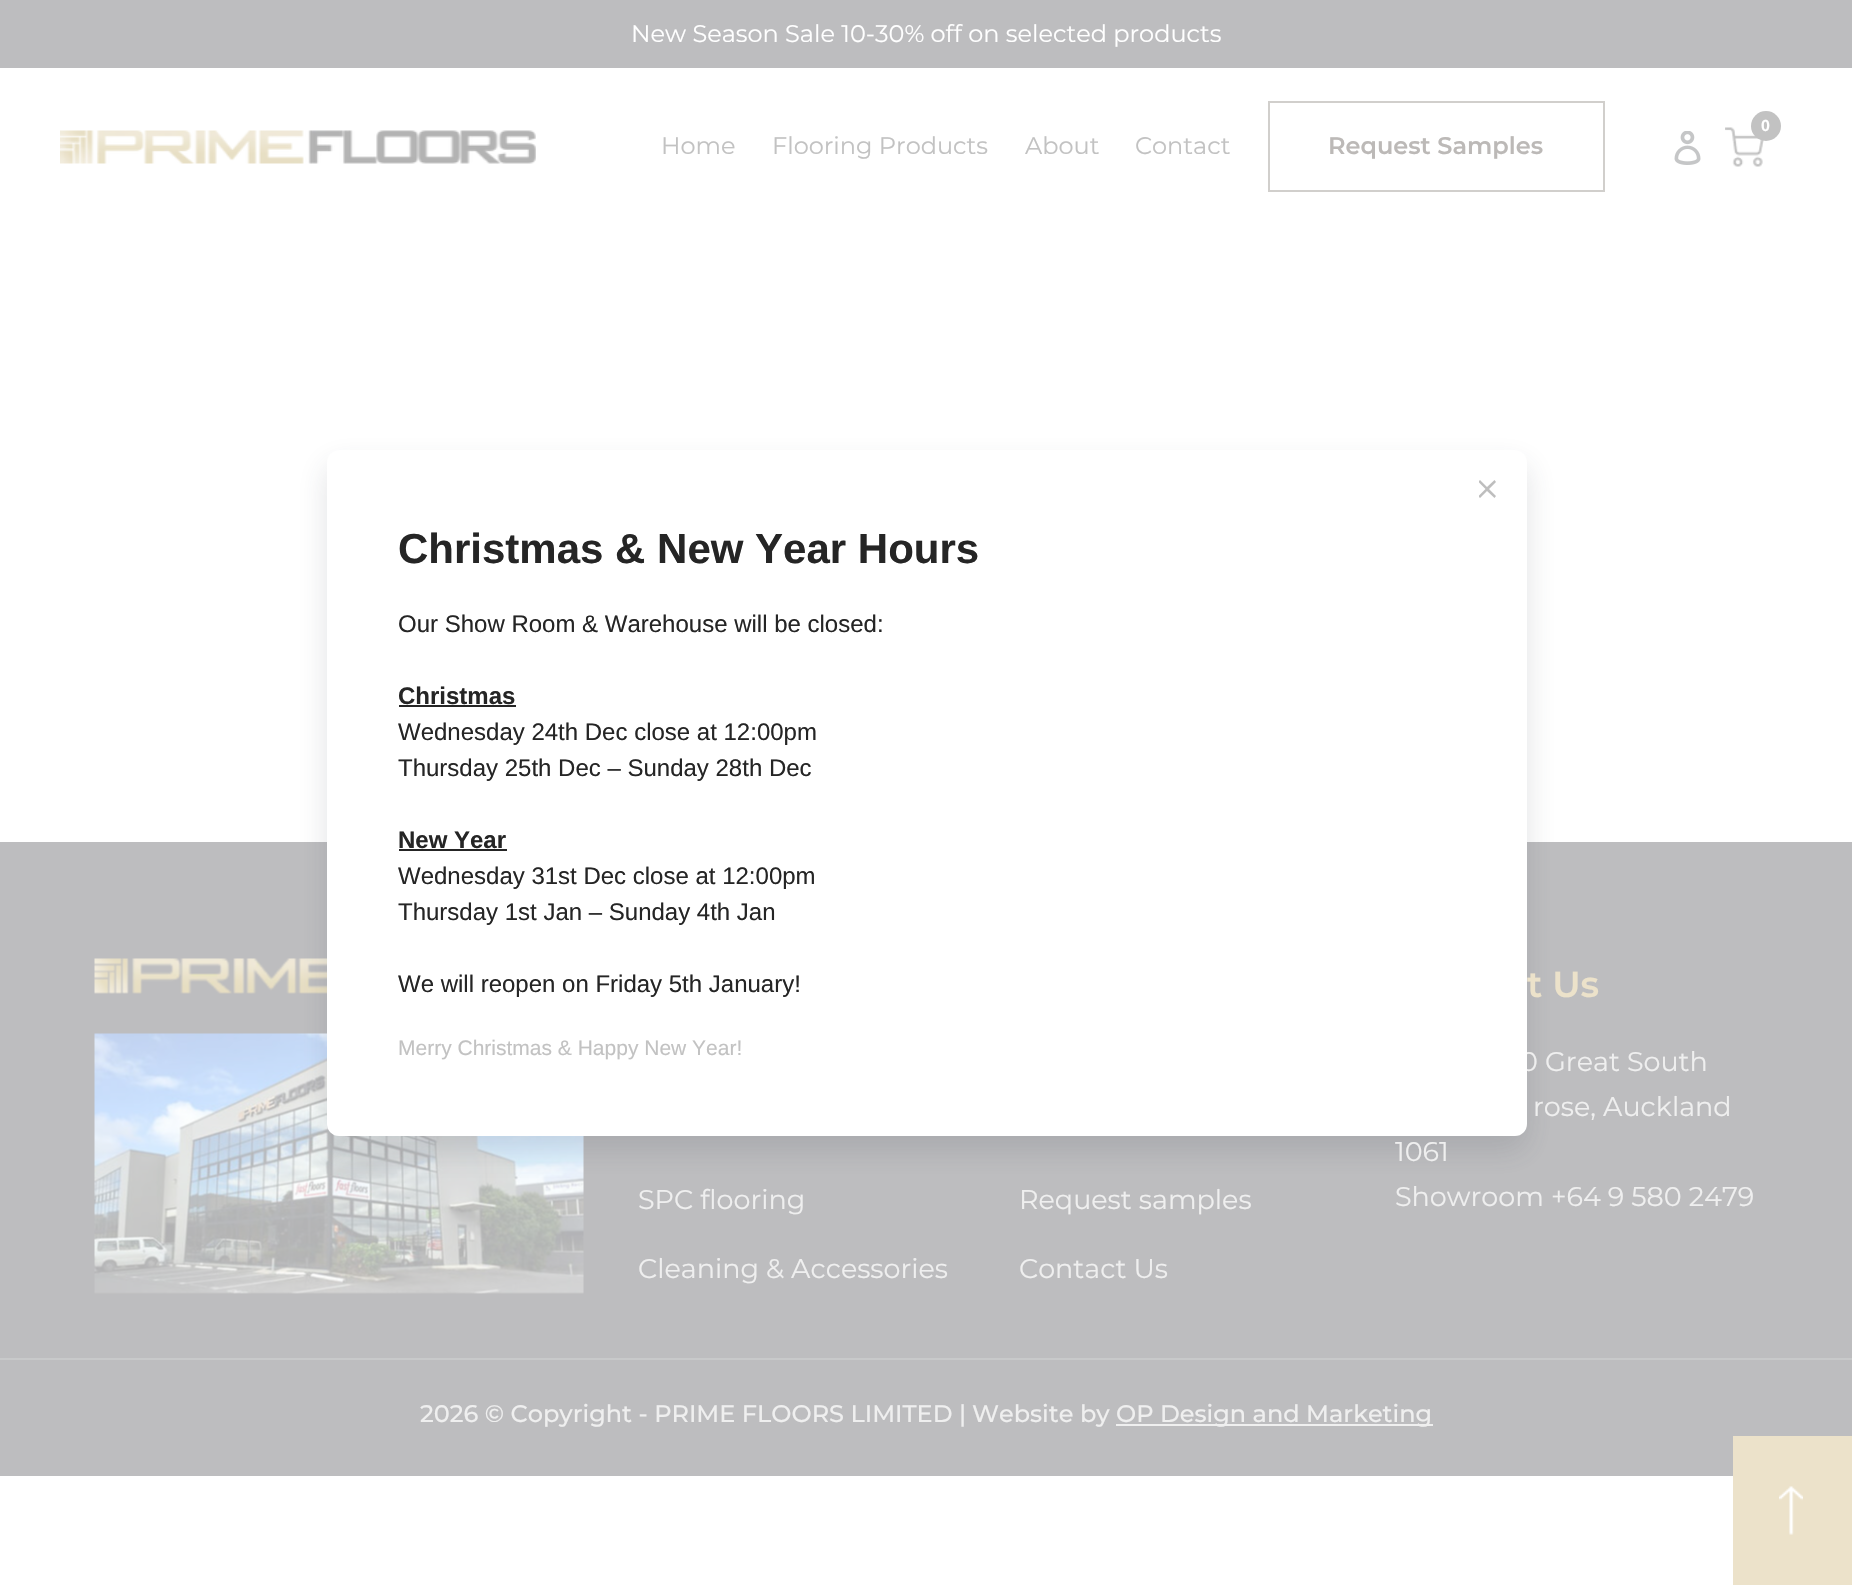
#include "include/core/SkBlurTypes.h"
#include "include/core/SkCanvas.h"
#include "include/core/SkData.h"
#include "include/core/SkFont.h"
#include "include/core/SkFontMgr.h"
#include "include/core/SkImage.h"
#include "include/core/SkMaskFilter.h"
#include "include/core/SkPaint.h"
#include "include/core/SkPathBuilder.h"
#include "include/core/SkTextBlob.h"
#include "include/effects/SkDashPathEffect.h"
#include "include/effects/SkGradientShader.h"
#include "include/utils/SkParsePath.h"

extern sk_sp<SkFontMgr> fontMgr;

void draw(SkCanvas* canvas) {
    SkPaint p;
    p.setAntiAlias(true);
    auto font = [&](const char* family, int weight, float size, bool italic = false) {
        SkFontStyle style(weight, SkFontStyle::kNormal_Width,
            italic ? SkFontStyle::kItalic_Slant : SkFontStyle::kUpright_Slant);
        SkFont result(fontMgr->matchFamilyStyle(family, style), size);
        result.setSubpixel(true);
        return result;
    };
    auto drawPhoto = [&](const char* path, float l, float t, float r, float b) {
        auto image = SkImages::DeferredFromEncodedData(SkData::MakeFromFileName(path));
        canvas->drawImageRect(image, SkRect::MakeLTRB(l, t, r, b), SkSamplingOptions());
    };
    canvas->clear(0xFFFFFFFF);
    p.setColor(0xFFBDBDBF);
    canvas->drawRect(SkRect::MakeLTRB(0, 0, 1852, 68), p);
    auto font1 = font("Montserrat", 400, 24);
    p.setColor(0xFFFFFFFF);
    canvas->drawString("New Season Sale 10-30% off on selected products", 631, 42, font1, p);
    drawPhoto("media/1.png", 1725, 127, 1764, 167);
    p.setColor(0xFFC2C2C2);
    canvas->drawCircle(1766, 126, 15, p);
    auto font2 = font("Liberation Sans", 700, 16);
    p.setColor(0xFFFFFFFF);
    canvas->drawString("0", 1761, 131, font2, p);
    drawPhoto("media/2.png", 1674, 131, 1701, 165);
    drawPhoto("media/3.png", 60, 130, 536, 164);
    p.setColor(0xFFC2C2C2);
    {
        const struct { const char* s; float x, y; } items[] = {
            {"Home", 661, 154},
            {"Flooring Products", 772, 154},
            {"About", 1025, 154},
            {"Contact", 1135, 154},
        };
        for (auto [s, x, y] : items) {
            canvas->drawString(s, x, y, font1, p);
        }
    }
    p.setStyle(SkPaint::kStroke_Style);
    p.setStrokeWidth(2);
    p.setColor(0xFFD1CFCC);
    canvas->drawRect(SkRect::MakeLTRB(1269, 102, 1604, 191), p);
    auto font3 = font("Montserrat", 600, 24);
    p.setStyle(SkPaint::kFill_Style);
    p.setColor(0xFFBCB9B7);
    canvas->drawString("Request Samples", 1328, 154, font3, p);
    p.setColor(0xFFBDBDBF);
    canvas->drawRect(SkRect::MakeLTRB(0, 842, 1852, 1476), p);
    p.setColor(0xFFECE2CA);
    canvas->drawRect(SkRect::MakeLTRB(1733, 1436, 1852, 1585), p);
    drawPhoto("media/4.png", 1779, 1486, 1803, 1535);
    drawPhoto("media/5.png", 94, 958, 327, 994);
    drawPhoto("media/6.png", 94, 1033, 584, 1294);
    p.setColor(0x26363D4D);
    p.setMaskFilter(SkMaskFilter::MakeBlur(kNormal_SkBlurStyle, 15));
    canvas->drawRoundRect(SkRect::MakeLTRB(327, 465, 1527, 1151), 12, 12, p);
    p.setMaskFilter(nullptr);
    auto font4 = font("Montserrat", 400, 27);
    p.setColor(0xFFEFEFEF);
    canvas->drawString("0 Great South", 1520, 1071, font4, p);
    p.setColor(0xFFFFFFFF);
    canvas->drawRoundRect(SkRect::MakeLTRB(327, 450, 1527, 1136), 12, 12, p);
    p.setColor(0xFFBEBEBE);
    canvas->drawPath(SkPathBuilder().moveTo(1480, 480).lineTo(1487, 487).lineTo(1494.5f, 480).lineTo(1496, 482).lineTo(1489, 489).lineTo(1496, 496).lineTo(1494.5f, 498).lineTo(1487, 491).lineTo(1480, 498).lineTo(1479, 497).lineTo(1479, 495.5f).lineTo(1485.5f, 489).lineTo(1479, 482.5f).lineTo(1479, 481).close().detach(), p);
    auto font5 = font("Liberation Sans", 700, 42);
    p.setColor(0xFF252525);
    canvas->drawString("Christmas & New Year Hours", 398, 563, font5, p);
    auto font6 = font("Liberation Sans", 400, 24);
    canvas->drawString("Our Show Room & Warehouse will be closed:", 398, 632, font6, p);
    auto font7 = font("Liberation Sans", 700, 24);
    canvas->drawString("Christmas", 398, 704, font7, p);
    canvas->drawRect(SkRect::MakeLTRB(399, 705, 516, 707), p);
    canvas->drawString("Wednesday 24th Dec close at 12:00pm", 398, 740, font6, p);
    canvas->drawString("Thursday 25th Dec – Sunday 28th Dec", 398, 776, font6, p);
    canvas->drawString("New Year", 398, 848, font7, p);
    canvas->drawRect(SkRect::MakeLTRB(399, 849, 507, 851), p);
    {
        const struct { const char* s; float x, y; } items[] = {
            {"Wednesday 31st Dec close at 12:00pm", 398, 884},
            {"Thursday 1st Jan – Sunday 4th Jan", 398, 920},
            {"We will reopen on Friday 5th January!", 398, 992},
        };
        for (auto [s, x, y] : items) {
            canvas->drawString(s, x, y, font6, p);
        }
    }
    auto font8 = font("Liberation Sans", 400, 21);
    p.setColor(0xFFC2C2C2);
    canvas->drawString("Merry Christmas & Happy New Year!", 398, 1055, font8, p);
    auto font9 = font("Montserrat", 600, 36);
    p.setColor(0xFFECE2CA);
    canvas->drawString("t Us", 1527, 997, font9, p);
    p.setColor(0xFFEFEFEF);
    {
        const struct { const char* s; float x, y; } items[] = {
            {"rose, Auckland", 1533, 1116},
            {"1061", 1395, 1161},
            {"Showroom +64 9 580 2479", 1395, 1206},
            {"SPC flooring", 638, 1209},
            {"Cleaning & Accessories", 638, 1278},
            {"Request samples", 1019, 1209},
            {"Contact Us", 1019, 1278},
        };
        for (auto [s, x, y] : items) {
            canvas->drawString(s, x, y, font4, p);
        }
    }
    p.setColor(0xFFC8C9CA);
    canvas->drawRect(SkRect::MakeLTRB(0, 1358, 1852, 1360), p);
    auto font10 = font("Montserrat", 500, 24);
    p.setColor(0xFFEFEFEF);
    canvas->drawString("2026 © Copyright - PRIME FLOORS LIMITED |", 420, 1422, font10, p);
    canvas->drawString("Website by", 972, 1422, font10, p);
    canvas->drawRect(SkRect::MakeLTRB(1116, 1424, 1433, 1426), p);
    canvas->drawString("OP Design and Marketing", 1116, 1422, font10, p);
}
